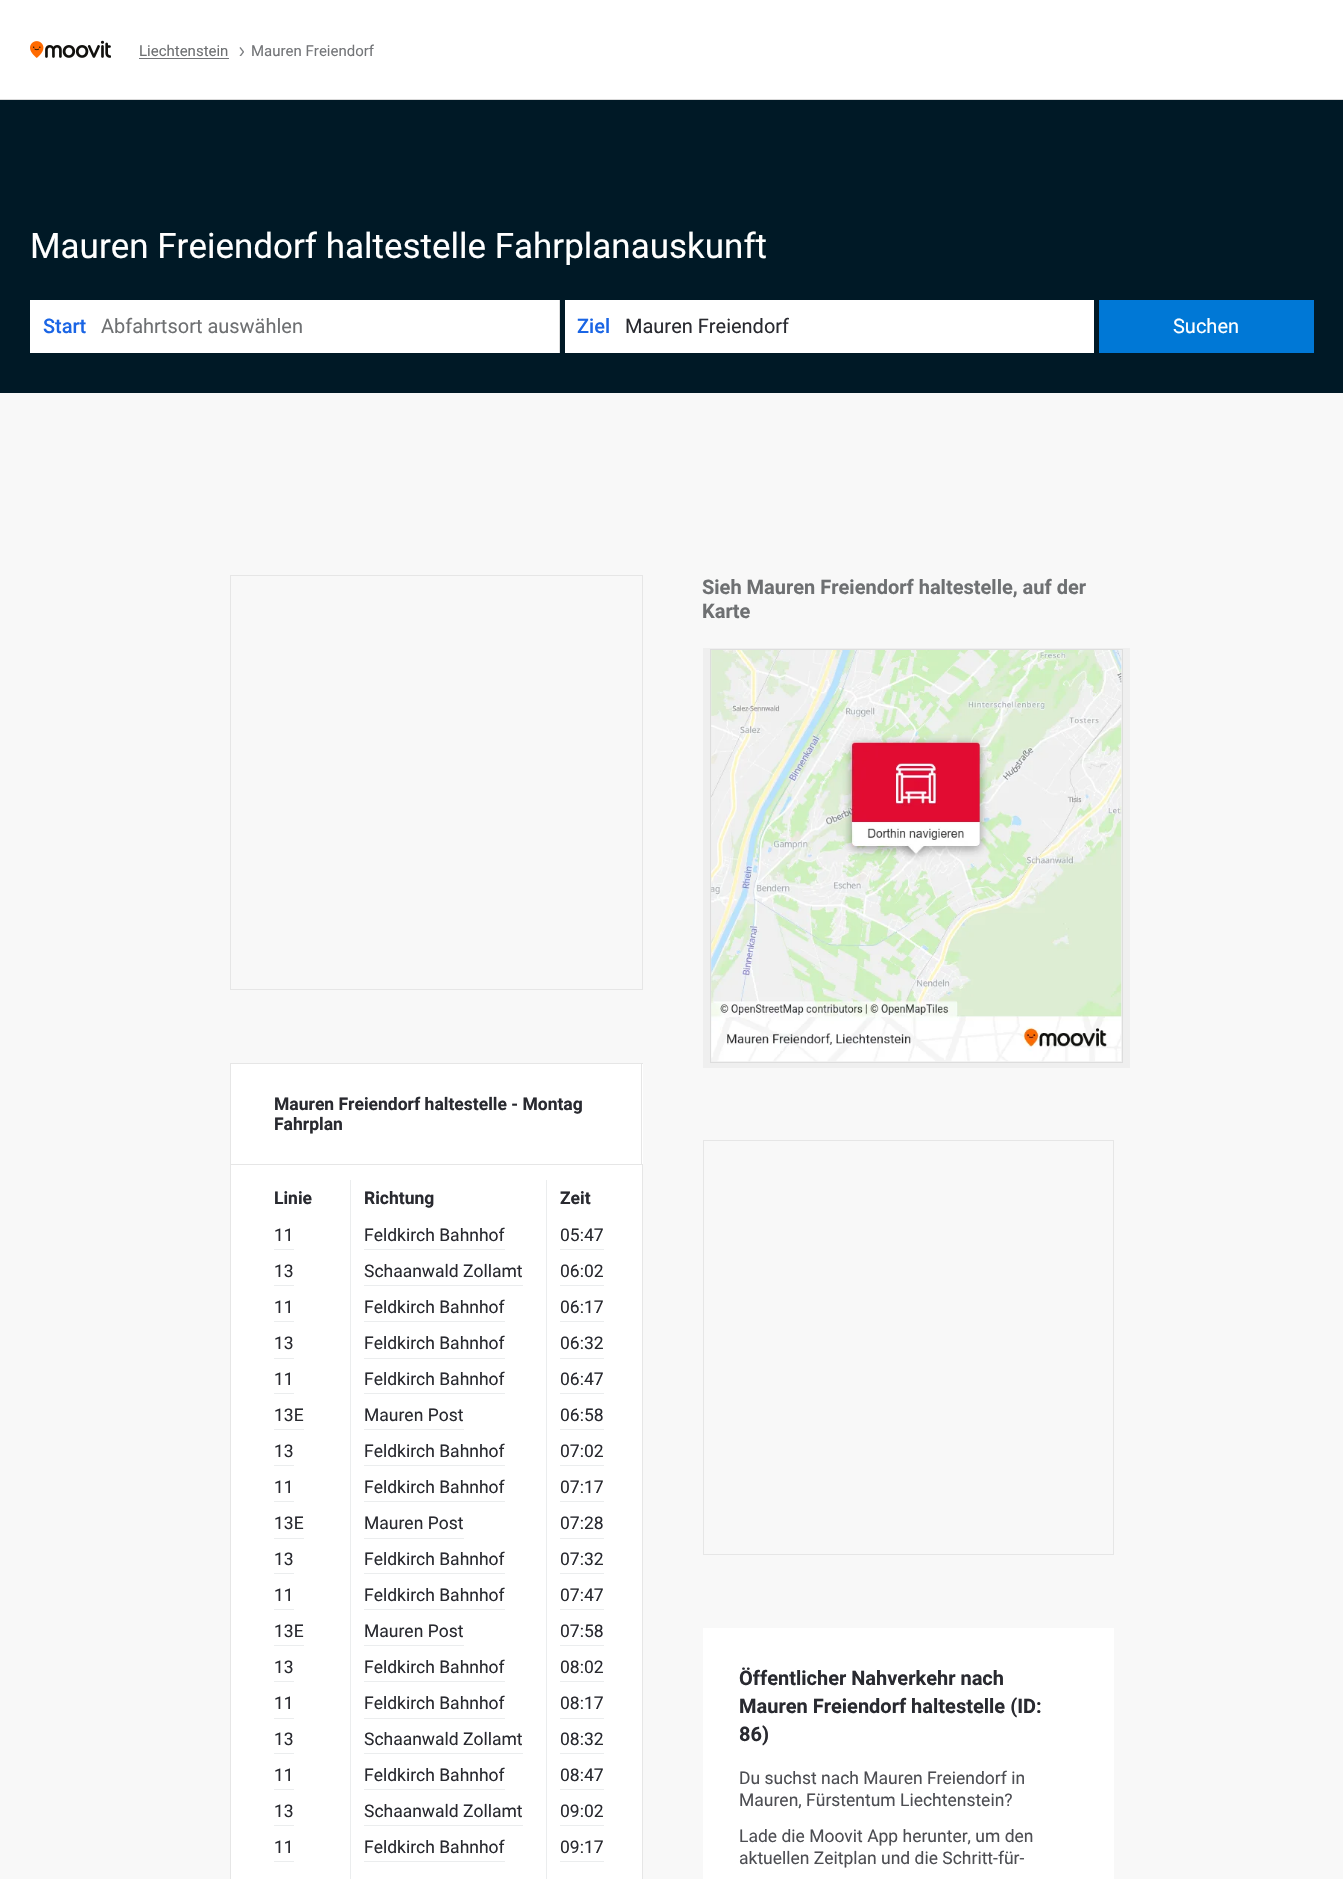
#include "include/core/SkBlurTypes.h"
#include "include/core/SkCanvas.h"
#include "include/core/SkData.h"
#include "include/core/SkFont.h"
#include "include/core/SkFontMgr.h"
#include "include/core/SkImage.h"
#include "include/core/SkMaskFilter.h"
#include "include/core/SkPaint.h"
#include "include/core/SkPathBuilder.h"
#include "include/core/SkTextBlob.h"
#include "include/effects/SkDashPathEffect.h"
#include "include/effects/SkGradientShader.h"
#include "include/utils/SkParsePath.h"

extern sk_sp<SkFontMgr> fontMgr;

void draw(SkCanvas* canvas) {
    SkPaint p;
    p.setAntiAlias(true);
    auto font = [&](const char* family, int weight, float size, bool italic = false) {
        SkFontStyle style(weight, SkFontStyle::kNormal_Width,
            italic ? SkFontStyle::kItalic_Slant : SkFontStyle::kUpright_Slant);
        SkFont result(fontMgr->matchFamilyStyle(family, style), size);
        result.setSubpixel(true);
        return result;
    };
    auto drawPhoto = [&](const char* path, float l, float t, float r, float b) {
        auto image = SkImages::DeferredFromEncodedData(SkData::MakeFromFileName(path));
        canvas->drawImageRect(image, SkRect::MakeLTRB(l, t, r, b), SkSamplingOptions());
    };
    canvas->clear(0xFFF8F8F8);
    p.setColor(0xFFFFFFFF);
    canvas->drawRect(SkRect::MakeLTRB(0, 0, 1343, 99), p);
    p.setColor(0xFFD9D9D9);
    canvas->drawRect(SkRect::MakeLTRB(0, 99, 1343, 100), p);
    drawPhoto("media/1.png", 30, 40, 111, 58);
    auto font1 = font("Roboto", 400, 15);
    p.setColor(0xFF6E7072);
    canvas->drawString("Liechtenstein", 139, 56, font1, p);
    p.setColor(0xFF737578);
    canvas->drawRect(SkRect::MakeLTRB(139, 58, 229, 59), p);
    drawPhoto("media/2.png", 239, 47, 244, 56);
    canvas->drawString("Mauren Freiendorf", 251, 56, font1, p);
    p.setColor(0xFF001926);
    canvas->drawRect(SkRect::MakeLTRB(0, 100, 1343, 393), p);
    auto font2 = font("Roboto", 400, 35);
    p.setColor(0xFFFFFFFF);
    canvas->drawString("Mauren Freiendorf haltestelle Fahrplanauskunft", 30, 258, font2, p);
    canvas->drawRect(SkRect::MakeLTRB(30, 300, 559, 353), p);
    p.setColor(0xFFDDDDDD);
    canvas->drawRect(SkRect::MakeLTRB(559, 300, 560, 353), p);
    auto font3 = font("Roboto", 500, 20);
    p.setColor(0xFF1A65E5);
    canvas->drawString("Start", 43, 333, font3, p);
    auto font4 = font("Roboto", 400, 20);
    p.setColor(0xFF6E7072);
    canvas->drawString("Abfahrtsort auswählen", 101, 333, font4, p);
    p.setColor(0xFFFFFFFF);
    canvas->drawRect(SkRect::MakeLTRB(565, 300, 1094, 353), p);
    p.setColor(0xFF1A65E5);
    canvas->drawString("Ziel", 577, 333, font3, p);
    p.setColor(0xFF292A30);
    canvas->drawString("Mauren Freiendorf", 625, 333, font4, p);
    p.setColor(0xFF0078D6);
    canvas->drawRect(SkRect::MakeLTRB(1099, 300, 1314, 353), p);
    p.setColor(0xFFFFFFFF);
    canvas->drawString("Suchen", 1173, 333, font4, p);
    p.setStyle(SkPaint::kStroke_Style);
    p.setStrokeWidth(1);
    p.setColor(0xFFE6E6E6);
    canvas->drawRect(SkRect::MakeLTRB(230.5f, 575.5f, 642.5f, 989.5f), p);
    p.setStyle(SkPaint::kFill_Style);
    {
        const struct { float l, t, r, b; SkColor color; } items[] = {
            {231, 1064, 643, 1164, 0xFFFFFFFF},
            {230, 1063, 643, 1064, 0xFFE6E6E6},
            {641, 1063, 642, 1164, 0xFFE6E6E6},
            {230, 1063, 231, 1164, 0xFFE6E6E6},
        };
        for (auto [l, t, r, b, color] : items) {
            p.setColor(color);
            canvas->drawRect(SkRect::MakeLTRB(l, t, r, b), p);
        }
    }
    auto font5 = font("Roboto", 700, 17.5f);
    p.setColor(0xFF292A30);
    canvas->drawString("Mauren Freiendorf haltestelle - Montag", 274, 1110, font5, p);
    canvas->drawString("Fahrplan", 274, 1130, font5, p);
    p.setColor(0xFFFFFFFF);
    canvas->drawRect(SkRect::MakeLTRB(230.5f, 1164.5f, 642.5f, 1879.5f), p);
    p.setStyle(SkPaint::kStroke_Style);
    p.setColor(0xFFE6E6E6);
    canvas->drawRect(SkRect::MakeLTRB(230.5f, 1164.5f, 642.5f, 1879.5f), p);
    p.setStyle(SkPaint::kFill_Style);
    p.setColor(0xFFEBEDEE);
    canvas->drawRect(SkRect::MakeLTRB(350, 1180, 351, 1879), p);
    p.setColor(0xFF292A30);
    canvas->drawString("Linie", 274, 1204, font5, p);
    p.setColor(0xFFEBEDEE);
    canvas->drawRect(SkRect::MakeLTRB(546, 1180, 547, 1879), p);
    p.setColor(0xFF292A30);
    canvas->drawString("Richtung", 364, 1204, font5, p);
    canvas->drawString("Zeit", 560, 1204, font5, p);
    auto font6 = font("Roboto", 400, 17.5f);
    canvas->drawString("11", 274, 1241, font6, p);
    p.setColor(0xFFEBEDEE);
    canvas->drawRect(SkRect::MakeLTRB(274, 1249, 294, 1250), p);
    p.setColor(0xFF292A30);
    canvas->drawString("Feldkirch Bahnhof", 364, 1241, font6, p);
    p.setColor(0xFFEBEDEE);
    canvas->drawRect(SkRect::MakeLTRB(364, 1249, 505, 1250), p);
    p.setColor(0xFF292A30);
    canvas->drawString("05:47", 560, 1241, font6, p);
    p.setColor(0xFFEBEDEE);
    canvas->drawRect(SkRect::MakeLTRB(560, 1249, 604, 1250), p);
    p.setColor(0xFF292A30);
    canvas->drawString("13", 274, 1277, font6, p);
    p.setColor(0xFFEBEDEE);
    canvas->drawRect(SkRect::MakeLTRB(274, 1285, 294, 1286), p);
    p.setColor(0xFF292A30);
    canvas->drawString("Schaanwald Zollamt", 364, 1277, font6, p);
    p.setColor(0xFFEBEDEE);
    canvas->drawRect(SkRect::MakeLTRB(364, 1285, 523, 1286), p);
    p.setColor(0xFF292A30);
    canvas->drawString("06:02", 560, 1277, font6, p);
    p.setColor(0xFFEBEDEE);
    canvas->drawRect(SkRect::MakeLTRB(560, 1285, 604, 1286), p);
    p.setColor(0xFF292A30);
    canvas->drawString("11", 274, 1313, font6, p);
    p.setColor(0xFFEBEDEE);
    canvas->drawRect(SkRect::MakeLTRB(274, 1321, 294, 1322), p);
    p.setColor(0xFF292A30);
    canvas->drawString("Feldkirch Bahnhof", 364, 1313, font6, p);
    p.setColor(0xFFEBEDEE);
    canvas->drawRect(SkRect::MakeLTRB(364, 1321, 505, 1322), p);
    p.setColor(0xFF292A30);
    canvas->drawString("06:17", 560, 1313, font6, p);
    p.setColor(0xFFEBEDEE);
    canvas->drawRect(SkRect::MakeLTRB(560, 1321, 604, 1322), p);
    p.setColor(0xFF292A30);
    canvas->drawString("13", 274, 1349, font6, p);
    p.setColor(0xFFEBEDEE);
    canvas->drawRect(SkRect::MakeLTRB(274, 1358, 294, 1359), p);
    p.setColor(0xFF292A30);
    canvas->drawString("Feldkirch Bahnhof", 364, 1349, font6, p);
    p.setColor(0xFFEBEDEE);
    canvas->drawRect(SkRect::MakeLTRB(364, 1358, 505, 1359), p);
    p.setColor(0xFF292A30);
    canvas->drawString("06:32", 560, 1349, font6, p);
    p.setColor(0xFFEBEDEE);
    canvas->drawRect(SkRect::MakeLTRB(560, 1358, 604, 1359), p);
    p.setColor(0xFF292A30);
    canvas->drawString("11", 274, 1385, font6, p);
    p.setColor(0xFFEBEDEE);
    canvas->drawRect(SkRect::MakeLTRB(274, 1393, 294, 1394), p);
    p.setColor(0xFF292A30);
    canvas->drawString("Feldkirch Bahnhof", 364, 1385, font6, p);
    p.setColor(0xFFEBEDEE);
    canvas->drawRect(SkRect::MakeLTRB(364, 1393, 505, 1394), p);
    p.setColor(0xFF292A30);
    canvas->drawString("06:47", 560, 1385, font6, p);
    p.setColor(0xFFEBEDEE);
    canvas->drawRect(SkRect::MakeLTRB(560, 1393, 604, 1394), p);
    p.setColor(0xFF292A30);
    canvas->drawString("13E", 274, 1421, font6, p);
    p.setColor(0xFFEBEDEE);
    canvas->drawRect(SkRect::MakeLTRB(274, 1429, 304, 1430), p);
    p.setColor(0xFF292A30);
    canvas->drawString("Mauren Post", 364, 1421, font6, p);
    p.setColor(0xFFEBEDEE);
    canvas->drawRect(SkRect::MakeLTRB(364, 1429, 464, 1430), p);
    p.setColor(0xFF292A30);
    canvas->drawString("06:58", 560, 1421, font6, p);
    p.setColor(0xFFEBEDEE);
    canvas->drawRect(SkRect::MakeLTRB(560, 1429, 604, 1430), p);
    p.setColor(0xFF292A30);
    canvas->drawString("13", 274, 1457, font6, p);
    p.setColor(0xFFEBEDEE);
    canvas->drawRect(SkRect::MakeLTRB(274, 1465, 294, 1466), p);
    p.setColor(0xFF292A30);
    canvas->drawString("Feldkirch Bahnhof", 364, 1457, font6, p);
    p.setColor(0xFFEBEDEE);
    canvas->drawRect(SkRect::MakeLTRB(364, 1465, 505, 1466), p);
    p.setColor(0xFF292A30);
    canvas->drawString("07:02", 560, 1457, font6, p);
    p.setColor(0xFFEBEDEE);
    canvas->drawRect(SkRect::MakeLTRB(560, 1465, 604, 1466), p);
    p.setColor(0xFF292A30);
    canvas->drawString("11", 274, 1493, font6, p);
    p.setColor(0xFFEBEDEE);
    canvas->drawRect(SkRect::MakeLTRB(274, 1501, 294, 1502), p);
    p.setColor(0xFF292A30);
    canvas->drawString("Feldkirch Bahnhof", 364, 1493, font6, p);
    p.setColor(0xFFEBEDEE);
    canvas->drawRect(SkRect::MakeLTRB(364, 1501, 505, 1502), p);
    p.setColor(0xFF292A30);
    canvas->drawString("07:17", 560, 1493, font6, p);
    p.setColor(0xFFEBEDEE);
    canvas->drawRect(SkRect::MakeLTRB(560, 1501, 604, 1502), p);
    p.setColor(0xFF292A30);
    canvas->drawString("13E", 274, 1529, font6, p);
    p.setColor(0xFFEBEDEE);
    canvas->drawRect(SkRect::MakeLTRB(274, 1538, 304, 1539), p);
    p.setColor(0xFF292A30);
    canvas->drawString("Mauren Post", 364, 1529, font6, p);
    p.setColor(0xFFEBEDEE);
    canvas->drawRect(SkRect::MakeLTRB(364, 1538, 464, 1539), p);
    p.setColor(0xFF292A30);
    canvas->drawString("07:28", 560, 1529, font6, p);
    p.setColor(0xFFEBEDEE);
    canvas->drawRect(SkRect::MakeLTRB(560, 1538, 604, 1539), p);
    p.setColor(0xFF292A30);
    canvas->drawString("13", 274, 1565, font6, p);
    p.setColor(0xFFEBEDEE);
    canvas->drawRect(SkRect::MakeLTRB(274, 1573, 294, 1574), p);
    p.setColor(0xFF292A30);
    canvas->drawString("Feldkirch Bahnhof", 364, 1565, font6, p);
    p.setColor(0xFFEBEDEE);
    canvas->drawRect(SkRect::MakeLTRB(364, 1573, 505, 1574), p);
    p.setColor(0xFF292A30);
    canvas->drawString("07:32", 560, 1565, font6, p);
    p.setColor(0xFFEBEDEE);
    canvas->drawRect(SkRect::MakeLTRB(560, 1573, 604, 1574), p);
    p.setColor(0xFF292A30);
    canvas->drawString("11", 274, 1601, font6, p);
    p.setColor(0xFFEBEDEE);
    canvas->drawRect(SkRect::MakeLTRB(274, 1609, 294, 1610), p);
    p.setColor(0xFF292A30);
    canvas->drawString("Feldkirch Bahnhof", 364, 1601, font6, p);
    p.setColor(0xFFEBEDEE);
    canvas->drawRect(SkRect::MakeLTRB(364, 1609, 505, 1610), p);
    p.setColor(0xFF292A30);
    canvas->drawString("07:47", 560, 1601, font6, p);
    p.setColor(0xFFEBEDEE);
    canvas->drawRect(SkRect::MakeLTRB(560, 1609, 604, 1610), p);
    p.setColor(0xFF292A30);
    canvas->drawString("13E", 274, 1637, font6, p);
    p.setColor(0xFFEBEDEE);
    canvas->drawRect(SkRect::MakeLTRB(274, 1645, 304, 1646), p);
    p.setColor(0xFF292A30);
    canvas->drawString("Mauren Post", 364, 1637, font6, p);
    p.setColor(0xFFEBEDEE);
    canvas->drawRect(SkRect::MakeLTRB(364, 1645, 464, 1646), p);
    p.setColor(0xFF292A30);
    canvas->drawString("07:58", 560, 1637, font6, p);
    p.setColor(0xFFEBEDEE);
    canvas->drawRect(SkRect::MakeLTRB(560, 1645, 604, 1646), p);
    p.setColor(0xFF292A30);
    canvas->drawString("13", 274, 1673, font6, p);
    p.setColor(0xFFEBEDEE);
    canvas->drawRect(SkRect::MakeLTRB(274, 1681, 294, 1682), p);
    p.setColor(0xFF292A30);
    canvas->drawString("Feldkirch Bahnhof", 364, 1673, font6, p);
    p.setColor(0xFFEBEDEE);
    canvas->drawRect(SkRect::MakeLTRB(364, 1681, 505, 1682), p);
    p.setColor(0xFF292A30);
    canvas->drawString("08:02", 560, 1673, font6, p);
    p.setColor(0xFFEBEDEE);
    canvas->drawRect(SkRect::MakeLTRB(560, 1681, 604, 1682), p);
    p.setColor(0xFF292A30);
    canvas->drawString("11", 274, 1709, font6, p);
    p.setColor(0xFFEBEDEE);
    canvas->drawRect(SkRect::MakeLTRB(274, 1718, 294, 1719), p);
    p.setColor(0xFF292A30);
    canvas->drawString("Feldkirch Bahnhof", 364, 1709, font6, p);
    p.setColor(0xFFEBEDEE);
    canvas->drawRect(SkRect::MakeLTRB(364, 1718, 505, 1719), p);
    p.setColor(0xFF292A30);
    canvas->drawString("08:17", 560, 1709, font6, p);
    p.setColor(0xFFEBEDEE);
    canvas->drawRect(SkRect::MakeLTRB(560, 1718, 604, 1719), p);
    p.setColor(0xFF292A30);
    canvas->drawString("13", 274, 1745, font6, p);
    p.setColor(0xFFEBEDEE);
    canvas->drawRect(SkRect::MakeLTRB(274, 1753, 294, 1754), p);
    p.setColor(0xFF292A30);
    canvas->drawString("Schaanwald Zollamt", 364, 1745, font6, p);
    p.setColor(0xFFEBEDEE);
    canvas->drawRect(SkRect::MakeLTRB(364, 1753, 523, 1754), p);
    p.setColor(0xFF292A30);
    canvas->drawString("08:32", 560, 1745, font6, p);
    p.setColor(0xFFEBEDEE);
    canvas->drawRect(SkRect::MakeLTRB(560, 1753, 604, 1754), p);
    p.setColor(0xFF292A30);
    canvas->drawString("11", 274, 1781, font6, p);
    p.setColor(0xFFEBEDEE);
    canvas->drawRect(SkRect::MakeLTRB(274, 1789, 294, 1790), p);
    p.setColor(0xFF292A30);
    canvas->drawString("Feldkirch Bahnhof", 364, 1781, font6, p);
    p.setColor(0xFFEBEDEE);
    canvas->drawRect(SkRect::MakeLTRB(364, 1789, 505, 1790), p);
    p.setColor(0xFF292A30);
    canvas->drawString("08:47", 560, 1781, font6, p);
    p.setColor(0xFFEBEDEE);
    canvas->drawRect(SkRect::MakeLTRB(560, 1789, 604, 1790), p);
    p.setColor(0xFF292A30);
    canvas->drawString("13", 274, 1817, font6, p);
    p.setColor(0xFFEBEDEE);
    canvas->drawRect(SkRect::MakeLTRB(274, 1825, 294, 1826), p);
    p.setColor(0xFF292A30);
    canvas->drawString("Schaanwald Zollamt", 364, 1817, font6, p);
    p.setColor(0xFFEBEDEE);
    canvas->drawRect(SkRect::MakeLTRB(364, 1825, 523, 1826), p);
    p.setColor(0xFF292A30);
    canvas->drawString("09:02", 560, 1817, font6, p);
    p.setColor(0xFFEBEDEE);
    canvas->drawRect(SkRect::MakeLTRB(560, 1825, 604, 1826), p);
    p.setColor(0xFF292A30);
    canvas->drawString("11", 274, 1853, font6, p);
    p.setColor(0xFFEBEDEE);
    canvas->drawRect(SkRect::MakeLTRB(274, 1861, 294, 1862), p);
    p.setColor(0xFF292A30);
    canvas->drawString("Feldkirch Bahnhof", 364, 1853, font6, p);
    p.setColor(0xFFEBEDEE);
    canvas->drawRect(SkRect::MakeLTRB(364, 1861, 505, 1862), p);
    p.setColor(0xFF292A30);
    canvas->drawString("09:17", 560, 1853, font6, p);
    p.setColor(0xFFEBEDEE);
    canvas->drawRect(SkRect::MakeLTRB(560, 1861, 604, 1862), p);
    auto font7 = font("Roboto", 700, 20);
    p.setColor(0xFF6E7072);
    canvas->drawString("Sieh Mauren Freiendorf haltestelle, auf der", 702, 594, font7, p);
    canvas->drawString("Karte", 702, 618, font7, p);
    p.setColor(0xFFEFEFEF);
    canvas->drawRect(SkRect::MakeLTRB(703, 648, 1130, 1068), p);
    p.setStyle(SkPaint::kStroke_Style);
    p.setColor(0xFFDDDDDD);
    canvas->drawRect(SkRect::MakeLTRB(710.5f, 649.5f, 1122.5f, 1062.5f), p);
    drawPhoto("media/3.png", 711, 650, 1122, 1062);
    p.setColor(0xFFE6E6E6);
    canvas->drawRect(SkRect::MakeLTRB(703.5f, 1140.5f, 1113.5f, 1554.5f), p);
    p.setStyle(SkPaint::kFill_Style);
    p.setColor(0xFFFFFFFF);
    canvas->drawRect(SkRect::MakeLTRB(703, 1628, 1114, 1879), p);
    p.setColor(0xFF292A30);
    {
        const struct { const char* s; float x, y; } items[] = {
            {"Öffentlicher Nahverkehr nach", 739, 1685},
            {"Mauren Freiendorf haltestelle (ID:", 739, 1713},
            {"86)", 739, 1741},
        };
        for (auto [s, x, y] : items) {
            canvas->drawString(s, x, y, font7, p);
        }
    }
    p.setColor(0xFF4D4E53);
    {
        const struct { const char* s; float x, y; } items[] = {
            {"Du suchst nach Mauren Freiendorf in", 739, 1784},
            {"Mauren, Fürstentum Liechtenstein?", 739, 1806},
            {"Lade die Moovit App herunter, um den", 739, 1842},
            {"aktuellen Zeitplan und die Schritt-für-", 739, 1864},
        };
        for (auto [s, x, y] : items) {
            canvas->drawString(s, x, y, font6, p);
        }
    }
}
